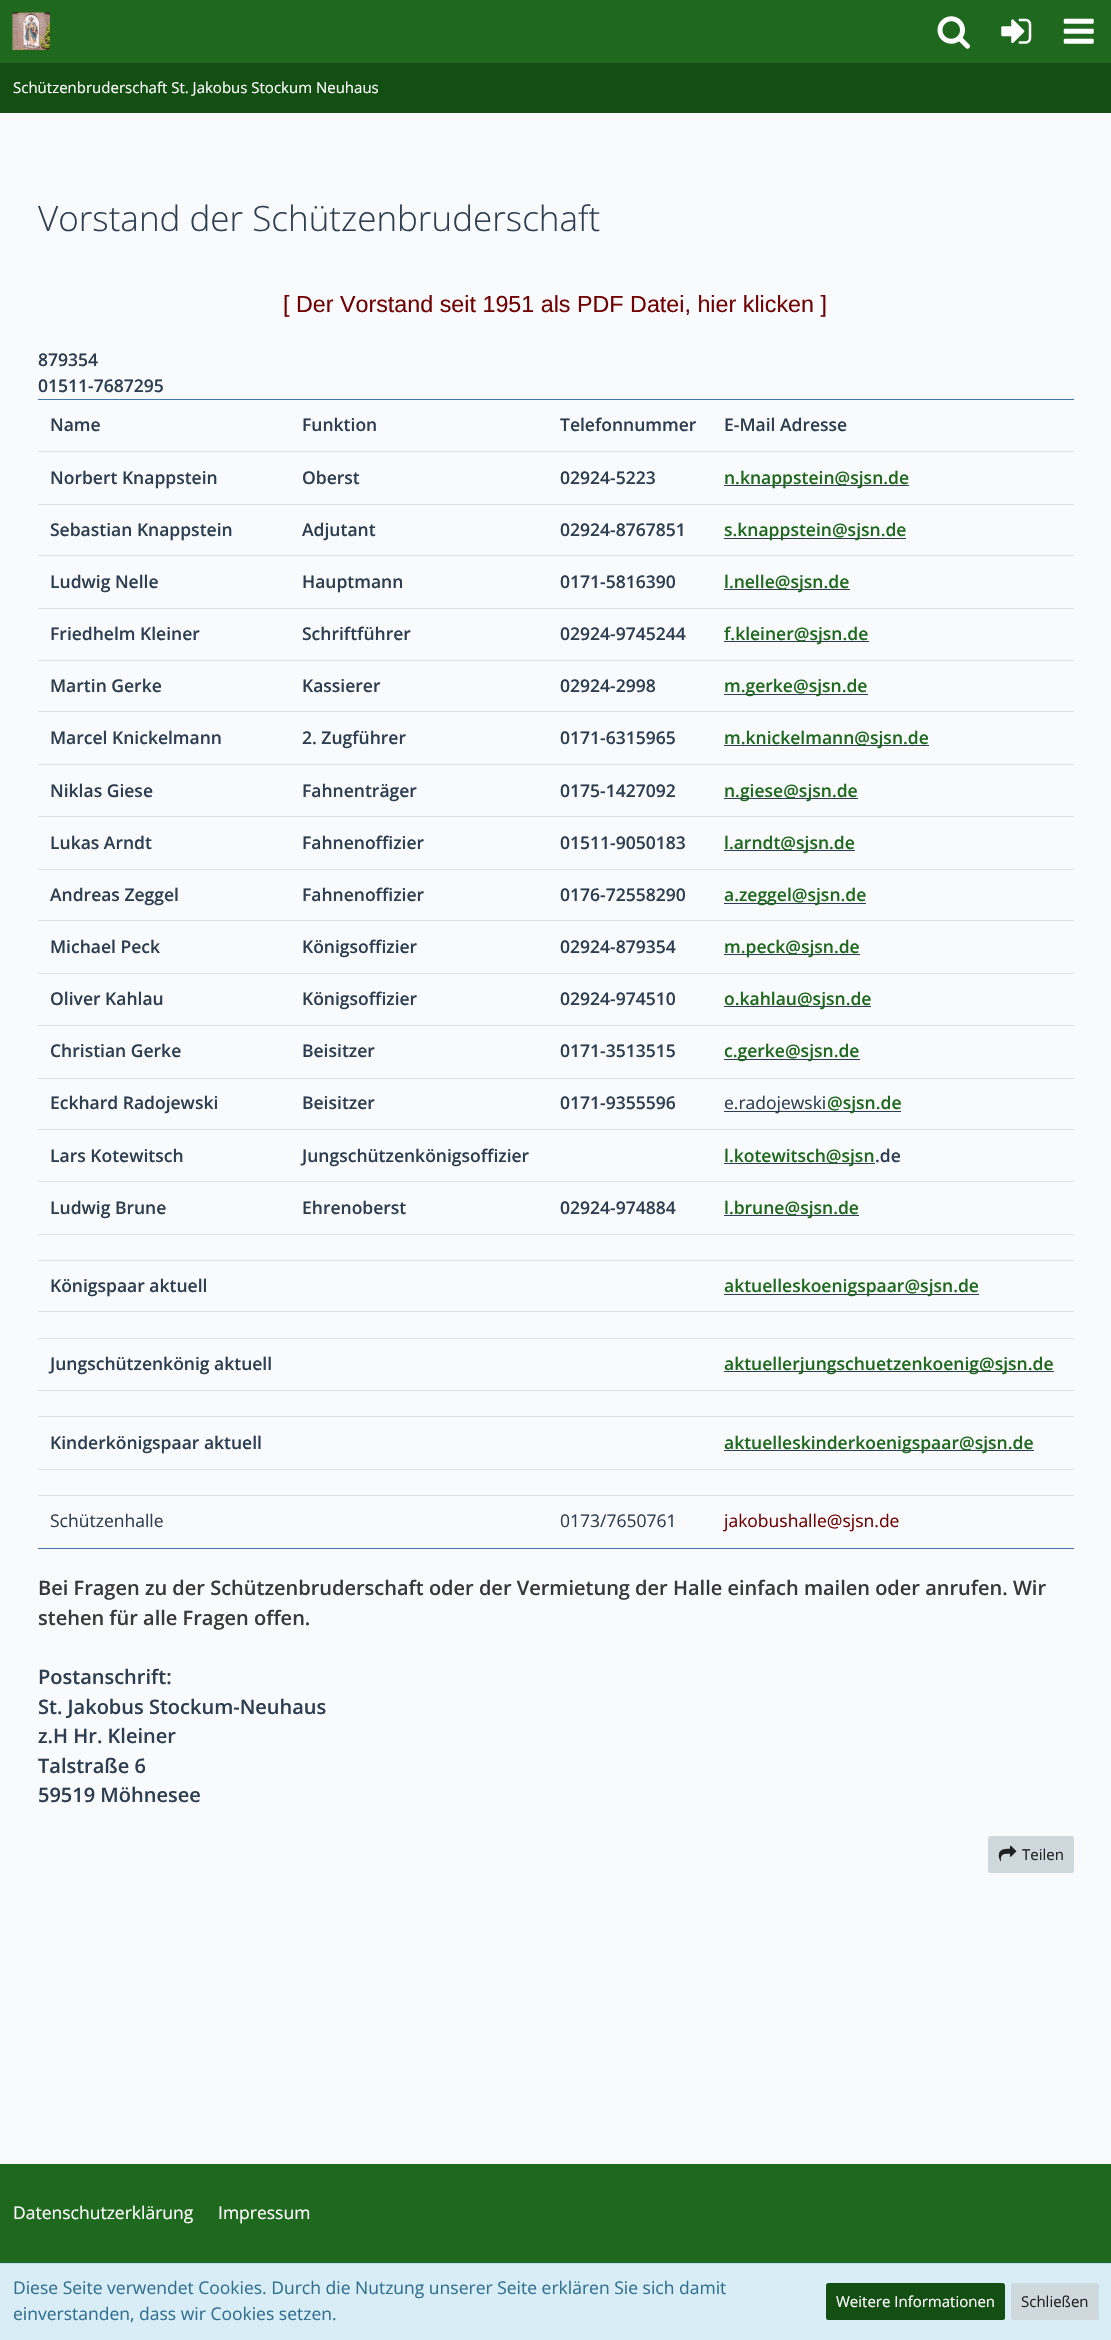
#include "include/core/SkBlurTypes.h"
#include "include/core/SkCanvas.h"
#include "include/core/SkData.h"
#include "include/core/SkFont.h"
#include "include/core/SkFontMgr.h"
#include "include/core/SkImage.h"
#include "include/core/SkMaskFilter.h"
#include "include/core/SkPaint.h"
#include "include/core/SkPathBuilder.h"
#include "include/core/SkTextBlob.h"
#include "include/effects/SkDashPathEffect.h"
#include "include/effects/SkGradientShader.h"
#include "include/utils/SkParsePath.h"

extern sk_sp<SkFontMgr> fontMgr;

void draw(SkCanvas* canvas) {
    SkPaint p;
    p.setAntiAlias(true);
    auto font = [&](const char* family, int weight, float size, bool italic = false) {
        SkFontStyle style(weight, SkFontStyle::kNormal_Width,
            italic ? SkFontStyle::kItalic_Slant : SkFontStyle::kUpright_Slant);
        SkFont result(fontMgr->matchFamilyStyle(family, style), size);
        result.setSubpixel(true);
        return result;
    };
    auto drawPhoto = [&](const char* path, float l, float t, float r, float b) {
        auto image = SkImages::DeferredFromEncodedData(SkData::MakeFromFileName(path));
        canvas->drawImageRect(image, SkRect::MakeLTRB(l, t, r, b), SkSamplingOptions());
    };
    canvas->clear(0xFFF9FAFC);
    p.setColor(0xFF1F691F);
    canvas->drawRect(SkRect::MakeLTRB(0, 0, 1111, 63), p);
    drawPhoto("media/1.png", 12, 12, 50, 50);
    drawPhoto("media/2.png", 937, 16, 970, 49);
    drawPhoto("media/3.png", 1001, 18, 1032, 44);
    drawPhoto("media/4.png", 1063, 18, 1094, 44);
    p.setColor(0xFF134F13);
    canvas->drawRect(SkRect::MakeLTRB(0, 63, 1111, 113), p);
    auto font1 = font("Open Sans", 400, 15);
    p.setColor(0xFFFFFFFF);
    canvas->drawString("Schützenbruderschaft St. Jakobus Stockum Neuhaus", 13, 93, font1, p);
    auto font2 = font("Open Sans", 300, 35);
    p.setColor(0xFF2C3E50);
    canvas->drawString("Vorstand der Schützenbruderschaft", 38, 231, font2, p);
    auto font3 = font("Liberation Sans", 400, 23.3f);
    p.setColor(0xFF710002);
    canvas->drawString("[ Der Vorstand seit 1951 als PDF Datei, hier klicken ]", 283, 312, font3, p);
    auto font4 = font("Open Sans", 600, 17.5f);
    p.setColor(0xFF2C3E50);
    canvas->drawString("879354", 38, 366, font4, p);
    canvas->drawString("01511-7687295", 38, 392, font4, p);
    {
        const struct { float l, t, r, b; SkColor color; } items[] = {
            {38, 1548, 1074, 1549, 0xFF4179AD},
            {38, 399, 1074, 400, 0xFF4179AD},
            {38, 451, 1074, 452, 0xFFE0E0E0},
        };
        for (auto [l, t, r, b, color] : items) {
            p.setColor(color);
            canvas->drawRect(SkRect::MakeLTRB(l, t, r, b), p);
        }
    }
    p.setColor(0xFF2C3E50);
    {
        const struct { const char* s; float x, y; } items[] = {
            {"Name", 50, 431},
            {"Funktion", 302, 431},
            {"Telefonnummer", 560, 431},
            {"E-Mail Adresse", 724, 431},
        };
        for (auto [s, x, y] : items) {
            canvas->drawString(s, x, y, font4, p);
        }
    }
    p.setColor(0xFFE0E0E0);
    canvas->drawRect(SkRect::MakeLTRB(38, 504, 1074, 505), p);
    p.setColor(0xFF2C3E50);
    {
        const struct { const char* s; float x, y; } items[] = {
            {"Norbert Knappstein", 50, 484},
            {"Oberst", 302, 484},
            {"02924-5223", 560, 484},
        };
        for (auto [s, x, y] : items) {
            canvas->drawString(s, x, y, font4, p);
        }
    }
    canvas->drawRect(SkRect::MakeLTRB(724, 485, 909, 486), p);
    p.setColor(0xFF1F691F);
    canvas->drawString("n.knappstein@sjsn.de", 724, 484, font4, p);
    p.setColor(0xFFE0E0E0);
    canvas->drawRect(SkRect::MakeLTRB(38, 555, 1074, 556), p);
    p.setColor(0xFF2C3E50);
    {
        const struct { const char* s; float x, y; } items[] = {
            {"Sebastian Knappstein", 50, 536},
            {"Adjutant", 302, 536},
            {"02924-8767851", 560, 536},
        };
        for (auto [s, x, y] : items) {
            canvas->drawString(s, x, y, font4, p);
        }
    }
    canvas->drawRect(SkRect::MakeLTRB(724, 538, 906, 539), p);
    p.setColor(0xFF1F691F);
    canvas->drawString("s.knappstein@sjsn.de", 724, 536, font4, p);
    p.setColor(0xFFE0E0E0);
    canvas->drawRect(SkRect::MakeLTRB(38, 608, 1074, 609), p);
    p.setColor(0xFF2C3E50);
    {
        const struct { const char* s; float x, y; } items[] = {
            {"Ludwig Nelle", 50, 588},
            {"Hauptmann", 302, 588},
            {"0171-5816390", 560, 588},
        };
        for (auto [s, x, y] : items) {
            canvas->drawString(s, x, y, font4, p);
        }
    }
    canvas->drawRect(SkRect::MakeLTRB(724, 589, 850, 590), p);
    p.setColor(0xFF1F691F);
    canvas->drawString("l.nelle@sjsn.de", 724, 588, font4, p);
    p.setColor(0xFFE0E0E0);
    canvas->drawRect(SkRect::MakeLTRB(38, 660, 1074, 661), p);
    p.setColor(0xFF2C3E50);
    {
        const struct { const char* s; float x, y; } items[] = {
            {"Friedhelm Kleiner", 50, 640},
            {"Schriftführer", 302, 640},
            {"02924-9745244", 560, 640},
        };
        for (auto [s, x, y] : items) {
            canvas->drawString(s, x, y, font4, p);
        }
    }
    canvas->drawRect(SkRect::MakeLTRB(724, 641, 869, 642), p);
    p.setColor(0xFF1F691F);
    canvas->drawString("f.kleiner@sjsn.de", 724, 640, font4, p);
    p.setColor(0xFFE0E0E0);
    canvas->drawRect(SkRect::MakeLTRB(38, 711, 1074, 712), p);
    p.setColor(0xFF2C3E50);
    {
        const struct { const char* s; float x, y; } items[] = {
            {"Martin Gerke", 50, 692},
            {"Kassierer", 302, 692},
            {"02924-2998", 560, 692},
        };
        for (auto [s, x, y] : items) {
            canvas->drawString(s, x, y, font4, p);
        }
    }
    canvas->drawRect(SkRect::MakeLTRB(724, 694, 868, 695), p);
    p.setColor(0xFF1F691F);
    canvas->drawString("m.gerke@sjsn.de", 724, 692, font4, p);
    p.setColor(0xFFE0E0E0);
    canvas->drawRect(SkRect::MakeLTRB(38, 764, 1074, 765), p);
    p.setColor(0xFF2C3E50);
    {
        const struct { const char* s; float x, y; } items[] = {
            {"Marcel Knickelmann", 50, 744},
            {"2. Zugführer", 302, 744},
            {"0171-6315965", 560, 744},
        };
        for (auto [s, x, y] : items) {
            canvas->drawString(s, x, y, font4, p);
        }
    }
    canvas->drawRect(SkRect::MakeLTRB(724, 745, 929, 746), p);
    p.setColor(0xFF1F691F);
    canvas->drawString("m.knickelmann@sjsn.de", 724, 744, font4, p);
    p.setColor(0xFFE0E0E0);
    canvas->drawRect(SkRect::MakeLTRB(38, 816, 1074, 817), p);
    p.setColor(0xFF2C3E50);
    {
        const struct { const char* s; float x, y; } items[] = {
            {"Niklas Giese", 50, 797},
            {"Fahnenträger", 302, 797},
            {"0175-1427092", 560, 797},
        };
        for (auto [s, x, y] : items) {
            canvas->drawString(s, x, y, font4, p);
        }
    }
    canvas->drawRect(SkRect::MakeLTRB(724, 798, 858, 799), p);
    p.setColor(0xFF1F691F);
    canvas->drawString("n.giese@sjsn.de", 724, 797, font4, p);
    p.setColor(0xFFE0E0E0);
    canvas->drawRect(SkRect::MakeLTRB(38, 869, 1074, 870), p);
    p.setColor(0xFF2C3E50);
    {
        const struct { const char* s; float x, y; } items[] = {
            {"Lukas Arndt", 50, 849},
            {"Fahnenoffizier", 302, 849},
            {"01511-9050183", 560, 849},
        };
        for (auto [s, x, y] : items) {
            canvas->drawString(s, x, y, font4, p);
        }
    }
    canvas->drawRect(SkRect::MakeLTRB(724, 850, 855, 851), p);
    p.setColor(0xFF1F691F);
    canvas->drawString("l.arndt@sjsn.de", 724, 849, font4, p);
    p.setColor(0xFFE0E0E0);
    canvas->drawRect(SkRect::MakeLTRB(38, 920, 1074, 921), p);
    p.setColor(0xFF2C3E50);
    {
        const struct { const char* s; float x, y; } items[] = {
            {"Andreas Zeggel", 50, 901},
            {"Fahnenoffizier", 302, 901},
            {"0176-72558290", 560, 901},
        };
        for (auto [s, x, y] : items) {
            canvas->drawString(s, x, y, font4, p);
        }
    }
    canvas->drawRect(SkRect::MakeLTRB(724, 903, 866, 904), p);
    p.setColor(0xFF1F691F);
    canvas->drawString("a.zeggel@sjsn.de", 724, 901, font4, p);
    p.setColor(0xFFE0E0E0);
    canvas->drawRect(SkRect::MakeLTRB(38, 973, 1074, 974), p);
    p.setColor(0xFF2C3E50);
    {
        const struct { const char* s; float x, y; } items[] = {
            {"Michael Peck", 50, 953},
            {"Königsoffizier", 302, 953},
            {"02924-879354", 560, 953},
        };
        for (auto [s, x, y] : items) {
            canvas->drawString(s, x, y, font4, p);
        }
    }
    canvas->drawRect(SkRect::MakeLTRB(724, 954, 860, 955), p);
    p.setColor(0xFF1F691F);
    canvas->drawString("m.peck@sjsn.de", 724, 953, font4, p);
    p.setColor(0xFFE0E0E0);
    canvas->drawRect(SkRect::MakeLTRB(38, 1025, 1074, 1026), p);
    p.setColor(0xFF2C3E50);
    {
        const struct { const char* s; float x, y; } items[] = {
            {"Oliver Kahlau", 50, 1005},
            {"Königsoffizier", 302, 1005},
            {"02924-974510", 560, 1005},
        };
        for (auto [s, x, y] : items) {
            canvas->drawString(s, x, y, font4, p);
        }
    }
    canvas->drawRect(SkRect::MakeLTRB(724, 1006, 871, 1007), p);
    p.setColor(0xFF1F691F);
    canvas->drawString("o.kahlau@sjsn.de", 724, 1005, font4, p);
    p.setColor(0xFFE0E0E0);
    canvas->drawRect(SkRect::MakeLTRB(38, 1078, 1074, 1079), p);
    p.setColor(0xFF2C3E50);
    {
        const struct { const char* s; float x, y; } items[] = {
            {"Christian Gerke", 50, 1057},
            {"Beisitzer", 302, 1057},
            {"0171-3513515", 560, 1057},
        };
        for (auto [s, x, y] : items) {
            canvas->drawString(s, x, y, font4, p);
        }
    }
    canvas->drawRect(SkRect::MakeLTRB(724, 1059, 860, 1060), p);
    p.setColor(0xFF1F691F);
    canvas->drawString("c.gerke@sjsn.de", 724, 1057, font4, p);
    p.setColor(0xFFE0E0E0);
    canvas->drawRect(SkRect::MakeLTRB(38, 1129, 1074, 1130), p);
    p.setColor(0xFF2C3E50);
    {
        const struct { const char* s; float x, y; } items[] = {
            {"Eckhard Radojewski", 50, 1109},
            {"Beisitzer", 302, 1109},
            {"0171-9355596", 560, 1109},
        };
        for (auto [s, x, y] : items) {
            canvas->drawString(s, x, y, font4, p);
        }
    }
    canvas->drawRect(SkRect::MakeLTRB(724, 1111, 901, 1112), p);
    auto font5 = font("Open Sans", 400, 17.5f);
    canvas->drawString("e.radojewski", 724, 1109, font5, p);
    p.setColor(0xFF1F691F);
    canvas->drawString("@sjsn.de", 827, 1109, font4, p);
    p.setColor(0xFFE0E0E0);
    canvas->drawRect(SkRect::MakeLTRB(38, 1181, 1074, 1182), p);
    p.setColor(0xFF2C3E50);
    canvas->drawString("Lars Kotewitsch", 50, 1162, font4, p);
    canvas->drawString("Jungschützenkönigsoffizier", 302, 1162, font4, p);
    canvas->drawRect(SkRect::MakeLTRB(724, 1163, 875, 1164), p);
    p.setColor(0xFF1F691F);
    canvas->drawString("l.kotewitsch@sjsn", 724, 1162, font4, p);
    p.setColor(0xFF2C3E50);
    canvas->drawString(".de", 875, 1162, font4, p);
    p.setColor(0xFFE0E0E0);
    canvas->drawRect(SkRect::MakeLTRB(38, 1234, 1074, 1235), p);
    p.setColor(0xFF2C3E50);
    {
        const struct { const char* s; float x, y; } items[] = {
            {"Ludwig Brune", 50, 1214},
            {"Ehrenoberst", 302, 1214},
            {"02924-974884", 560, 1214},
        };
        for (auto [s, x, y] : items) {
            canvas->drawString(s, x, y, font4, p);
        }
    }
    canvas->drawRect(SkRect::MakeLTRB(724, 1215, 859, 1216), p);
    p.setColor(0xFF1F691F);
    canvas->drawString("l.brune@sjsn.de", 724, 1214, font4, p);
    p.setColor(0xFFE0E0E0);
    canvas->drawRect(SkRect::MakeLTRB(38, 1260, 1074, 1261), p);
    canvas->drawRect(SkRect::MakeLTRB(38, 1311, 1074, 1312), p);
    p.setColor(0xFF2C3E50);
    canvas->drawString("Königspaar aktuell", 50, 1292, font4, p);
    canvas->drawRect(SkRect::MakeLTRB(724, 1294, 979, 1295), p);
    p.setColor(0xFF1F691F);
    canvas->drawString("aktuelleskoenigspaar@sjsn.de", 724, 1292, font4, p);
    p.setColor(0xFFE0E0E0);
    canvas->drawRect(SkRect::MakeLTRB(38, 1338, 1074, 1339), p);
    canvas->drawRect(SkRect::MakeLTRB(38, 1390, 1074, 1391), p);
    p.setColor(0xFF2C3E50);
    canvas->drawString("Jungschützenkönig aktuell", 50, 1370, font4, p);
    canvas->drawRect(SkRect::MakeLTRB(724, 1371, 1054, 1372), p);
    p.setColor(0xFF1F691F);
    canvas->drawString("aktuellerjungschuetzenkoenig@sjsn.de", 724, 1370, font4, p);
    p.setColor(0xFFE0E0E0);
    canvas->drawRect(SkRect::MakeLTRB(38, 1416, 1074, 1417), p);
    canvas->drawRect(SkRect::MakeLTRB(38, 1469, 1074, 1470), p);
    p.setColor(0xFF2C3E50);
    canvas->drawString("Kinderkönigspaar aktuell", 50, 1449, font4, p);
    canvas->drawRect(SkRect::MakeLTRB(724, 1450, 1034, 1451), p);
    p.setColor(0xFF1F691F);
    canvas->drawString("aktuelleskinderkoenigspaar@sjsn.de", 724, 1449, font4, p);
    p.setColor(0xFFE0E0E0);
    canvas->drawRect(SkRect::MakeLTRB(38, 1495, 1074, 1496), p);
    p.setColor(0xFF2C3E50);
    canvas->drawString("Schützenhalle", 50, 1527, font5, p);
    canvas->drawString("0173/7650761", 560, 1527, font5, p);
    p.setColor(0xFF710002);
    canvas->drawString("jakobushalle@sjsn.de", 724, 1527, font5, p);
    auto font6 = font("Open Sans", 600, 20);
    p.setColor(0xFF393939);
    canvas->drawString("Bei Fragen zu der Schützenbruderschaft oder der Vermietung der Halle einfach mailen oder anrufen. Wir", 38, 1595, font6, p);
    canvas->drawString("stehen für alle Fragen offen.", 38, 1625, font6, p);
    p.setColor(0xFF2C3E50);
    {
        const struct { const char* s; float x, y; } items[] = {
            {"Postanschrift:", 38, 1684},
            {"St. Jakobus Stockum-Neuhaus", 38, 1714},
            {"z.H Hr. Kleiner", 38, 1743},
            {"Talstraße 6", 38, 1773},
            {"59519 Möhnesee", 38, 1802},
        };
        for (auto [s, x, y] : items) {
            canvas->drawString(s, x, y, font6, p);
        }
    }
    p.setColor(0xFFCFD8DC);
    canvas->drawRoundRect(SkRect::MakeLTRB(988, 1836, 1074, 1873), 2.5f, 2.5f, p);
    drawPhoto("media/5.png", 998, 1845, 1017, 1862);
    p.setColor(0xFF212121);
    canvas->drawString("Teilen", 1022, 1860, font1, p);
    p.setColor(0xFF1F691F);
    canvas->drawRect(SkRect::MakeLTRB(0, 2164, 1111, 2263), p);
    p.setColor(0xFFFFFFFF);
    canvas->drawString("Datenschutzerklärung", 13, 2219, font5, p);
    canvas->drawString("Impressum", 218, 2219, font5, p);
    p.setColor(0xFFD9EDF7);
    canvas->drawRect(SkRect::MakeLTRB(0, 2264, 1111, 2340), p);
    p.setColor(0xFFBCDFF1);
    canvas->drawRect(SkRect::MakeLTRB(0, 2263, 1111, 2264), p);
    p.setColor(0xFF31708F);
    canvas->drawString("Diese Seite verwendet Cookies. Durch die Nutzung unserer Seite erklären Sie sich damit", 13, 2294, font5, p);
    canvas->drawString("einverstanden, dass wir Cookies setzen.", 13, 2320, font5, p);
    p.setColor(0xFF134F13);
    canvas->drawRoundRect(SkRect::MakeLTRB(826, 2283, 1005, 2320), 2.5f, 2.5f, p);
    p.setColor(0xFFFFFFFF);
    canvas->drawString("Weitere Informationen", 836, 2307, font1, p);
    p.setColor(0xFFCFD8DC);
    canvas->drawRoundRect(SkRect::MakeLTRB(1011, 2283, 1099, 2320), 2.5f, 2.5f, p);
    p.setColor(0xFF212121);
    canvas->drawString("Schließen", 1021, 2307, font1, p);
}
